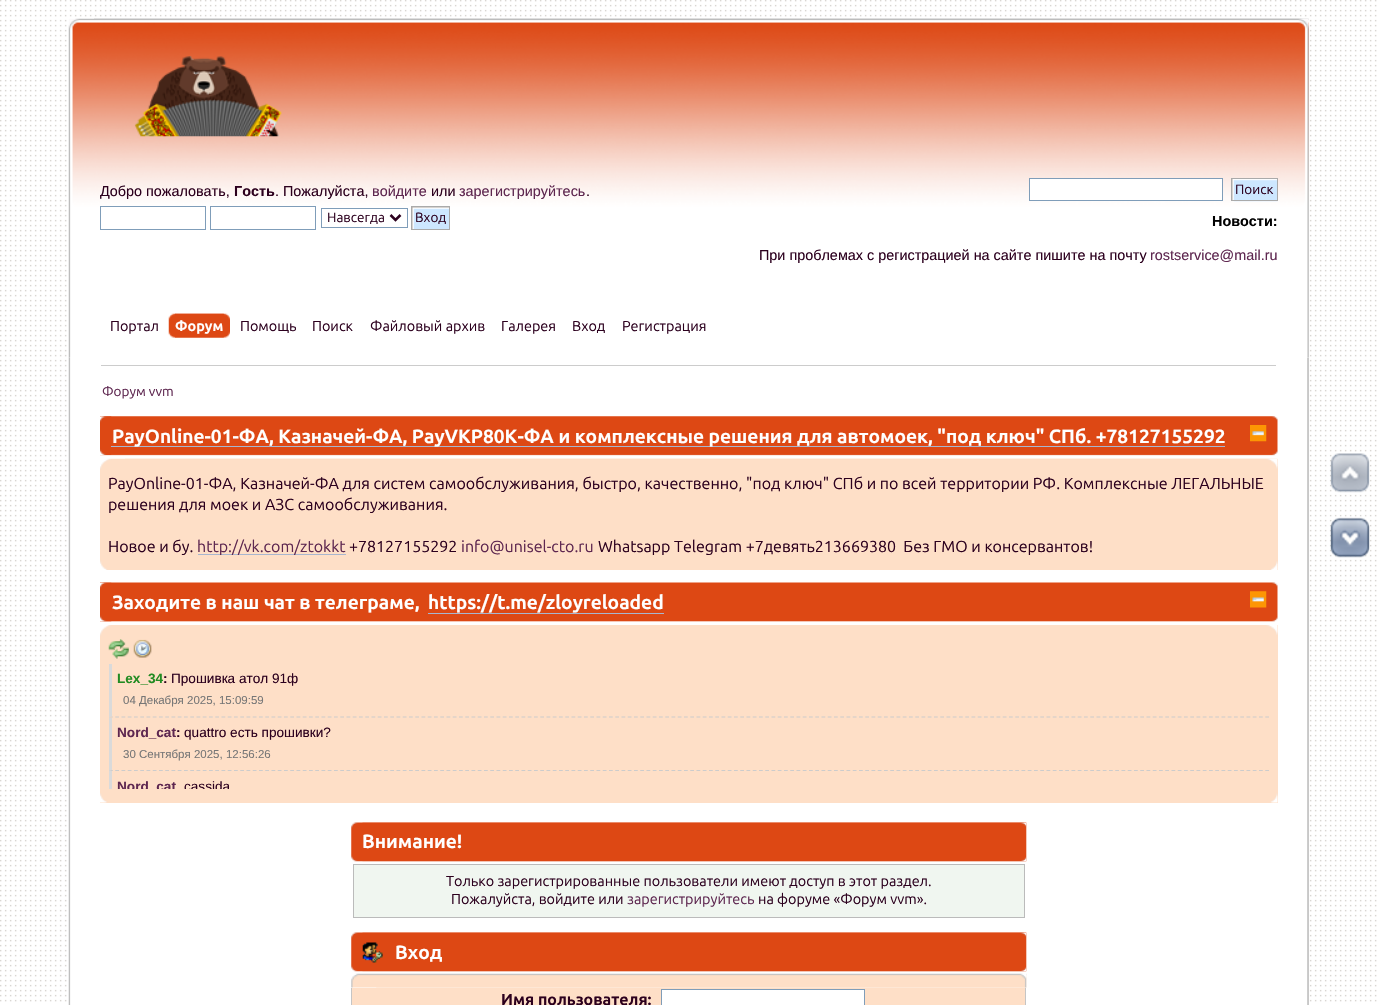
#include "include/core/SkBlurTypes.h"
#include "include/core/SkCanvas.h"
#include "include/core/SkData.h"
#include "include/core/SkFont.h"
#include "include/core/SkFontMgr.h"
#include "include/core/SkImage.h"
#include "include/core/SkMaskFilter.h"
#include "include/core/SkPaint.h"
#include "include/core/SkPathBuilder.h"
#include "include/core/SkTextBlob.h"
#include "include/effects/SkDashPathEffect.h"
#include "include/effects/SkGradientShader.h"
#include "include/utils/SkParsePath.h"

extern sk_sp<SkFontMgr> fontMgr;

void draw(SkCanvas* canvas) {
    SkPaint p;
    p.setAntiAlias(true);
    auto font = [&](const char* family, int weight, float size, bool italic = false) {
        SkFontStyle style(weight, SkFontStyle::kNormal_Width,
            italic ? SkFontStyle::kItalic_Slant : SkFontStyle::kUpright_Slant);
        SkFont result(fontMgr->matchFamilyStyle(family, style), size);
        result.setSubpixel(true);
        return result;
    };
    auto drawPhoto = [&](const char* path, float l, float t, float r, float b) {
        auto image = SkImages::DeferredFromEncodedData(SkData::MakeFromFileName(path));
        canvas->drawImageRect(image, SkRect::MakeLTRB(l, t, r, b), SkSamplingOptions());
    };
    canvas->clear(0xFFFFFFFF);
    drawPhoto("media/1.png", 0, 0, 1377, 1002);
    drawPhoto("media/2.png", 68, 18, 1309, 358);
    drawPhoto("media/3.png", 94, 18, 1309, 358);
    drawPhoto("media/4.png", 134, 56, 282, 137);
    auto font1 = font("Liberation Sans", 400, 14.4f);
    p.setColor(0xFF2C001E);
    canvas->drawString("Добро пожаловать,", 100, 196, font1, p);
    auto font2 = font("Liberation Sans", 700, 14.4f);
    canvas->drawString("Гость", 234, 196, font2, p);
    canvas->drawString(". Пожалуйста,", 275, 196, font1, p);
    p.setColor(0xFF5E2750);
    canvas->drawString("войдите", 372, 196, font1, p);
    p.setColor(0xFF2C001E);
    canvas->drawString("или", 431, 196, font1, p);
    p.setColor(0xFF5E2750);
    canvas->drawString("зарегистрируйтесь", 459, 196, font1, p);
    p.setColor(0xFF2C001E);
    canvas->drawString(".", 586, 196, font1, p);
    p.setStyle(SkPaint::kStroke_Style);
    p.setStrokeWidth(1);
    p.setColor(0xFF7F9DB9);
    canvas->drawRect(SkRect::MakeLTRB(100.5f, 206.5f, 205.5f, 229.5f), p);
    canvas->drawRect(SkRect::MakeLTRB(210.5f, 206.5f, 315.5f, 229.5f), p);
    canvas->drawRect(SkRect::MakeLTRB(321.5f, 208.5f, 407.5f, 227.5f), p);
    p.setStrokeWidth(2.5f);
    p.setColor(0xFF2C001E);
    canvas->drawPath(SkPathBuilder().moveTo(390.5f, 215).lineTo(395.5f, 220).lineTo(400.5f, 215).detach(), p);
    auto font3 = font("Ubuntu", 400, 13.5f);
    p.setStyle(SkPaint::kFill_Style);
    canvas->drawString("Навсегда", 327, 222, font3, p);
    p.setColor(0xFFAEA79F);
    canvas->drawRect(SkRect::MakeLTRB(412, 207, 449, 229), p);
    drawPhoto("media/5.png", 412, 207, 449, 229);
    p.setStyle(SkPaint::kStroke_Style);
    p.setStrokeWidth(1);
    p.setColor(0xFFAAAAAA);
    canvas->drawRect(SkRect::MakeLTRB(411.5f, 206.5f, 449.5f, 229.5f), p);
    p.setStyle(SkPaint::kFill_Style);
    p.setColor(0xFF2C001E);
    canvas->drawString("Вход", 415, 222, font3, p);
    p.setColor(0xFFFFFFFF);
    canvas->drawRect(SkRect::MakeLTRB(1029.5f, 178.5f, 1222.5f, 200.5f), p);
    p.setStyle(SkPaint::kStroke_Style);
    p.setColor(0xFF7F9DB9);
    canvas->drawRect(SkRect::MakeLTRB(1029.5f, 178.5f, 1222.5f, 200.5f), p);
    p.setStyle(SkPaint::kFill_Style);
    p.setColor(0xFFAEA79F);
    canvas->drawRect(SkRect::MakeLTRB(1232, 179, 1233, 200), p);
    drawPhoto("media/6.png", 1232, 179, 1278, 202);
    p.setStyle(SkPaint::kStroke_Style);
    p.setColor(0xFFAAAAAA);
    canvas->drawRect(SkRect::MakeLTRB(1231.5f, 178.5f, 1277.5f, 200.5f), p);
    p.setStyle(SkPaint::kFill_Style);
    p.setColor(0xFF2C001E);
    canvas->drawString("Поиск", 1235, 194, font3, p);
    p.setColor(0xFF000000);
    canvas->drawString("Новости:", 1212, 226, font2, p);
    p.setColor(0xFF2C001E);
    canvas->drawString("При проблемах с регистрацией на сайте пишите на почту", 759, 260, font1, p);
    p.setColor(0xFF5E2750);
    canvas->drawString("rostservice@mail.ru", 1150, 260, font1, p);
    auto font4 = font("Ubuntu", 400, 14.4f);
    p.setColor(0xFF2C001E);
    canvas->drawString("Портал", 110, 331, font4, p);
    drawPhoto("media/7.png", 175, 313, 230, 338);
    drawPhoto("media/8.png", 168, 313, 224, 338);
    auto font5 = font("Ubuntu", 700, 14.4f);
    p.setColor(0xFFFFFFFF);
    canvas->drawString("Форум", 175, 331, font5, p);
    p.setColor(0xFF2C001E);
    {
        const struct { const char* s; float x, y; } items[] = {
            {"Помощь", 240, 331},
            {"Поиск", 312, 331},
            {"Файловый архив", 370, 331},
            {"Галерея", 501, 331},
            {"Вход", 572, 331},
            {"Регистрация", 622, 331},
        };
        for (auto [s, x, y] : items) {
            canvas->drawString(s, x, y, font4, p);
        }
    }
    drawPhoto("media/9.png", 68, 357, 1309, 1005);
    drawPhoto("media/10.png", 1307, 357, 1309, 1005);
    p.setColor(0xFFCCCCCC);
    canvas->drawRect(SkRect::MakeLTRB(101, 365, 1276, 366), p);
    p.setColor(0xFF5E2750);
    canvas->drawString("Форум vvm", 102, 396, font3, p);
    drawPhoto("media/11.png", 100, 416, 1278, 456);
    drawPhoto("media/12.png", 100, 416, 112, 455);
    p.setColor(0xFFA8B6CF);
    canvas->drawRect(SkRect::MakeLTRB(111, 446, 1225, 447), p);
    auto font6 = font("Ubuntu", 700, 19.2f);
    p.setColor(0xFFFFFFFF);
    canvas->drawString("PayOnline-01-ФА, Казначей-ФА, PayVKP80K-ФА и комплексные решения для автомоек, \"под ключ\" СПб. +78127155292", 112, 443, font6, p);
    drawPhoto("media/13.png", 1250, 425, 1267, 442);
    p.setColor(0xFFFEDFC7);
    canvas->drawRect(SkRect::MakeLTRB(100, 459, 1278, 570), p);
    drawPhoto("media/14.png", 100, 458, 1278, 470);
    drawPhoto("media/15.png", 125, 458, 1278, 469);
    auto font7 = font("Ubuntu", 400, 16);
    p.setColor(0xFF2C001E);
    {
        const struct { const char* s; float x, y; } items[] = {
            {"PayOnline-01-ФА, Казначей-ФА для систем самообслуживания, быстро, качественно, \"под ключ\" СПб и по всей территории РФ. Комплексные ЛЕГАЛЬНЫЕ", 108, 489},
            {"решения для моек и АЗС самообслуживания.", 108, 510},
            {"Новое и бу.", 108, 552},
        };
        for (auto [s, x, y] : items) {
            canvas->drawString(s, x, y, font7, p);
        }
    }
    p.setColor(0xFFA8B6CF);
    canvas->drawRect(SkRect::MakeLTRB(198, 554, 346, 555), p);
    p.setColor(0xFF5E2750);
    canvas->drawString("http://vk.com/ztokkt", 197, 552, font7, p);
    p.setColor(0xFF2C001E);
    canvas->drawString("+78127155292", 349, 552, font7, p);
    p.setColor(0xFF5E2750);
    canvas->drawString("info@unisel-cto.ru", 461, 552, font7, p);
    p.setColor(0xFF2C001E);
    canvas->drawString("Whatsapp Telegram +7девять213669380  Без ГМО и консервантов!", 598, 552, font7, p);
    drawPhoto("media/16.png", 100, 560, 108, 570);
    drawPhoto("media/17.png", 1270, 561, 1278, 570);
    drawPhoto("media/18.png", 100, 582, 1278, 622);
    drawPhoto("media/19.png", 100, 582, 112, 622);
    p.setColor(0xFFFFFFFF);
    canvas->drawString("Заходите в наш чат в телеграме,", 112, 609, font6, p);
    canvas->drawString("https://t.me/zloyreloaded", 428, 609, font6, p);
    p.setColor(0xFFA8B6CF);
    canvas->drawRect(SkRect::MakeLTRB(428, 613, 664, 614), p);
    drawPhoto("media/20.png", 1250, 591, 1267, 608);
    p.setColor(0xFFFEDFC7);
    canvas->drawRect(SkRect::MakeLTRB(100, 625, 1278, 803), p);
    drawPhoto("media/21.png", 100, 625, 111, 636);
    drawPhoto("media/22.png", 1266, 625, 1278, 635);
    drawPhoto("media/23.png", 108, 639, 129, 659);
    drawPhoto("media/24.png", 133, 639, 152, 658);
    p.setStyle(SkPaint::kStroke_Style);
    p.setStrokeWidth(1.2f);
    p.setColor(0xFFCCCCCC);
    p.setPathEffect(SkDashPathEffect::Make({{3.75f, 2.5f}}, 0));
    canvas->drawPath(SkPathBuilder().moveTo(109, 717).lineTo(1269, 717).detach(), p);
    p.setPathEffect(nullptr);
    p.setStyle(SkPaint::kFill_Style);
    p.setColor(0xFFDADADA);
    canvas->drawPath(SkPathBuilder().moveTo(109, 718).lineTo(109, 664).lineTo(112, 664).lineTo(112, 716).close().detach(), p);
    auto font8 = font("Liberation Sans", 700, 13.6f);
    p.setColor(0xFF228B22);
    canvas->drawString("Lex_34", 117, 683, font8, p);
    p.setColor(0xFF2C001E);
    canvas->drawString(":", 163, 683, font8, p);
    auto font9 = font("Liberation Sans", 400, 13.6f);
    canvas->drawString("Прошивка атол 91ф", 171, 683, font9, p);
    auto font10 = font("Liberation Sans", 400, 11.5f);
    p.setColor(0xFF777777);
    canvas->drawString("04 Декабря 2025, 15:09:59", 123, 704, font10, p);
    p.setStyle(SkPaint::kStroke_Style);
    p.setColor(0xFFCCCCCC);
    p.setPathEffect(SkDashPathEffect::Make({{3.75f, 2.5f}}, 0));
    canvas->drawPath(SkPathBuilder().moveTo(109, 770.5f).lineTo(1269, 770.5f).detach(), p);
    p.setPathEffect(nullptr);
    p.setStyle(SkPaint::kFill_Style);
    p.setColor(0xFFDADADA);
    canvas->drawPath(SkPathBuilder().moveTo(109, 771).lineTo(109, 718).lineTo(112, 718).lineTo(112, 770).close().detach(), p);
    p.setColor(0xFF5E2750);
    canvas->drawString("Nord_cat", 117, 737, font8, p);
    p.setColor(0xFF2C001E);
    canvas->drawString(":", 176, 737, font8, p);
    canvas->drawString("quattro есть прошивки?", 184, 737, font9, p);
    p.setColor(0xFF777777);
    canvas->drawString("30 Сентября 2025, 12:56:26", 123, 758, font10, p);
    canvas->save();
    canvas->clipRect(SkRect::MakeLTRB(109, 664, 1269, 789));
    p.setColor(0xFFDADADA);
    canvas->drawPath(SkPathBuilder().moveTo(109, 825).lineTo(109, 771).lineTo(112, 771).lineTo(112, 824).close().detach(), p);
    p.setColor(0xFF5E2750);
    canvas->drawString("Nord_cat", 117, 791, font8, p);
    p.setColor(0xFF2C001E);
    canvas->drawString("cassida", 184, 791, font9, p);
    canvas->restore();
    drawPhoto("media/25.png", 100, 793, 107, 803);
    drawPhoto("media/26.png", 1270, 793, 1278, 803);
    drawPhoto("media/27.png", 1330, 453, 1370, 493);
    drawPhoto("media/28.png", 1330, 518, 1370, 558);
    drawPhoto("media/29.png", 1330, 517, 1370, 558);
    drawPhoto("media/30.png", 351, 822, 1027, 862);
    drawPhoto("media/31.png", 362, 822, 1027, 862);
    p.setColor(0xFFFFFFFF);
    canvas->drawString("Внимание!", 362, 848, font6, p);
    p.setColor(0xFFF0F6F0);
    canvas->drawRect(SkRect::MakeLTRB(353.5f, 864.5f, 1024.5f, 917.5f), p);
    p.setStyle(SkPaint::kStroke_Style);
    p.setStrokeWidth(1);
    p.setColor(0xFFBBBBBB);
    canvas->drawRect(SkRect::MakeLTRB(353.5f, 864.5f, 1024.5f, 917.5f), p);
    p.setStyle(SkPaint::kFill_Style);
    p.setColor(0xFF2C001E);
    canvas->drawString("Только зарегистрированные пользователи имеют доступ в этот раздел.", 446, 886, font4, p);
    canvas->drawString("Пожалуйста, войдите или", 451, 904, font4, p);
    p.setColor(0xFF5E2750);
    canvas->drawString("зарегистрируйтесь", 627, 904, font4, p);
    p.setColor(0xFF2C001E);
    canvas->drawString("на форуме «Форум vvm».", 758, 904, font4, p);
    drawPhoto("media/30.png", 351, 932, 1027, 972);
    drawPhoto("media/31.png", 362, 932, 1027, 972);
    drawPhoto("media/32.png", 362, 942, 383, 963);
    p.setColor(0xFFFFFFFF);
    canvas->drawString("Вход", 395, 959, font6, p);
    drawPhoto("media/33.png", 351, 973, 1027, 988);
    drawPhoto("media/34.png", 376, 973, 1027, 988);
    {
        const struct { float l, t, r, b; SkColor color; } items[] = {
            {352, 988, 1025, 1005, 0xFFFEDFC7},
            {1025, 988, 1026, 1005, 0xFFC5C5C5},
            {351, 988, 352, 1005, 0xFFC5C5C5},
        };
        for (auto [l, t, r, b, color] : items) {
            p.setColor(color);
            canvas->drawRect(SkRect::MakeLTRB(l, t, r, b), p);
        }
    }
    auto font11 = font("Ubuntu", 700, 16);
    p.setColor(0xFF2C001E);
    canvas->drawString("Имя пользователя:", 501, 1005, font11, p);
    p.setColor(0xFFFFFFFF);
    canvas->drawRect(SkRect::MakeLTRB(661.5f, 989.5f, 864.5f, 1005.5f), p);
    p.setStyle(SkPaint::kStroke_Style);
    p.setColor(0xFF7F9DB9);
    canvas->drawRect(SkRect::MakeLTRB(661.5f, 989.5f, 864.5f, 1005.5f), p);
}
